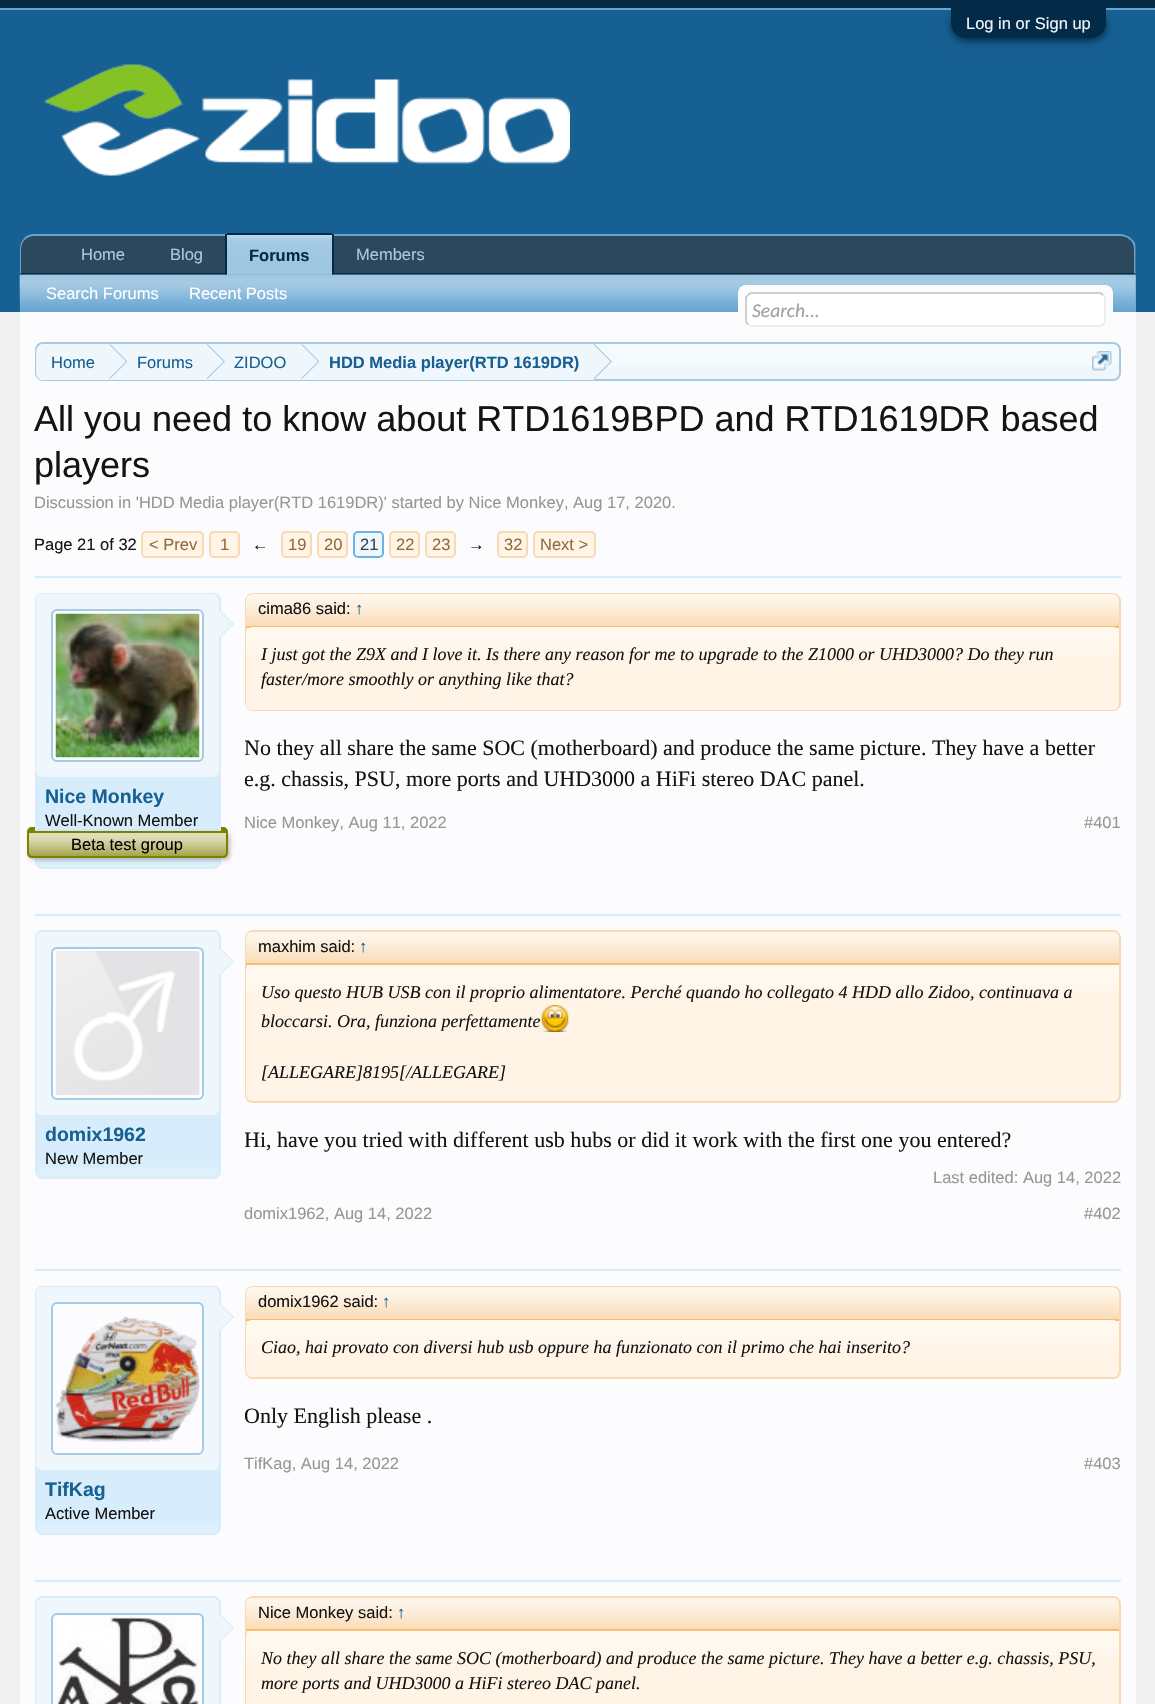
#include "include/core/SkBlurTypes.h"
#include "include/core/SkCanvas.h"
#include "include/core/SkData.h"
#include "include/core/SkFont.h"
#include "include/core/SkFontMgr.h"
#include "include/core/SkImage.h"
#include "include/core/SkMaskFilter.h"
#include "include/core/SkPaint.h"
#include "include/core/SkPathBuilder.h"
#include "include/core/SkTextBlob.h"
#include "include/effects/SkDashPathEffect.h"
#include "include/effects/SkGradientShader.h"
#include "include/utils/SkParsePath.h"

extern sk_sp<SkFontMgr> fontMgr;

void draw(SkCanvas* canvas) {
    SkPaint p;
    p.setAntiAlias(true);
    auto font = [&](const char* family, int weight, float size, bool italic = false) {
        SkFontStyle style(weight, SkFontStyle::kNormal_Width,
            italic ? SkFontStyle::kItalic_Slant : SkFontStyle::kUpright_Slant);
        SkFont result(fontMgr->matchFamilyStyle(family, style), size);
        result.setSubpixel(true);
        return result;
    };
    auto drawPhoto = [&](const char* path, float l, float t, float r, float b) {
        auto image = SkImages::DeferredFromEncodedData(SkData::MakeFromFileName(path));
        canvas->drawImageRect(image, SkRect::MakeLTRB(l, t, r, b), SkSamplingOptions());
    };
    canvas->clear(0xFFF0F0F0);
    {
        const struct { float l, t, r, b; SkColor color; } items[] = {
            {0, 0, 1155, 8, 0xFF032A46},
            {0, 8, 1155, 10, 0xFF65A5D1},
            {0, 10, 1155, 312, 0xFF176093},
        };
        for (auto [l, t, r, b, color] : items) {
            p.setColor(color);
            canvas->drawRect(SkRect::MakeLTRB(l, t, r, b), p);
        }
    }
    p.setColor(0xFF032A46);
    p.setMaskFilter(SkMaskFilter::MakeBlur(kNormal_SkBlurStyle, 4));
    canvas->drawRoundRect(SkRect::MakeLTRB(951, 11, 1106, 41), 15, 15, p);
    p.setMaskFilter(nullptr);
    canvas->drawPath(SkPathBuilder().moveTo(951, 8).lineTo(1106, 8).lineTo(1106, 23).cubicTo(1106, 31.5f, 1099.5f, 38, 1091, 38).lineTo(966, 38).cubicTo(957.5f, 38, 951, 31.5f, 951, 23).close().detach(), p);
    auto font1 = font("Liberation Sans", 400, 16.5f);
    p.setColor(0xFFF0F7FC);
    canvas->drawString("Log in or Sign up", 966, 29, font1, p);
    drawPhoto("media/1.png", 44, 64, 570, 176);
    p.setColor(0xFF2B485C);
    canvas->drawPath(SkPathBuilder().moveTo(35, 234).lineTo(1121, 234).cubicTo(1129.5f, 234, 1136, 240.5f, 1136, 249).lineTo(1136, 275).lineTo(20, 275).lineTo(20, 249).cubicTo(20, 240.5f, 26.5f, 234, 35, 234).close().detach(), p);
    p.setColor(0xFF65A5D1);
    canvas->drawPath(SkPathBuilder().moveTo(34, 234).cubicTo(30, 234, 26, 236, 24, 238).lineTo(25, 240).cubicTo(27, 237, 31, 236, 34, 236).lineTo(1120, 236).cubicTo(1124, 236, 1127, 237, 1130, 240).lineTo(1131, 238).cubicTo(1128, 236, 1124, 234, 1120, 234).close().detach(), p);
    canvas->drawPath(SkPathBuilder().moveTo(1135.5f, 274).lineTo(1135, 274).lineTo(1134, 273).lineTo(1134, 249).cubicTo(1134, 245.5f, 1132.5f, 242, 1130, 239.5f).lineTo(1131, 238.5f).cubicTo(1133.5f, 240, 1135, 242.5f, 1135.5f, 245.5f).close().detach(), p);
    p.setColor(0xFF032A46);
    canvas->drawPath(SkPathBuilder().moveTo(1135, 274).lineTo(20, 274).lineTo(21, 273).lineTo(1134, 273).close().detach(), p);
    p.setColor(0xFF65A5D1);
    canvas->drawPath(SkPathBuilder().moveTo(24, 238.5f).cubicTo(21.5f, 241, 20, 245, 20, 249).lineTo(20, 274).lineTo(21, 273).lineTo(21, 249).cubicTo(21, 245.5f, 22.5f, 242, 25, 239.5f).close().detach(), p);
    p.setColor(0xFFA5CAE4);
    {
        const struct { const char* s; float x, y; } items[] = {
            {"Home", 81, 260},
            {"Blog", 170, 260},
            {"Members", 356, 260},
        };
        for (auto [s, x, y] : items) {
            canvas->drawString(s, x, y, font1, p);
        }
    }
    p.setColor(0xFF65A5D1);
    canvas->drawPath(SkPathBuilder().moveTo(228, 233).lineTo(330, 233).cubicTo(331.5f, 233, 333, 234.5f, 333, 236).lineTo(333, 275).lineTo(225, 275).lineTo(225, 236).cubicTo(225, 234.5f, 226.5f, 233, 228, 233).close().detach(), p);
    drawPhoto("media/2.png", 227, 235, 332, 275);
    {
        const struct { float l, t, r, b; SkColor color; } items[] = {
            {227, 233, 332, 235, 0xFF032A46},
            {332, 234, 334, 275, 0xFF032A46},
            {225, 234, 227, 275, 0xFF032A46},
        };
        for (auto [l, t, r, b, color] : items) {
            p.setColor(color);
            canvas->drawRect(SkRect::MakeLTRB(l, t, r, b), p);
        }
    }
    auto font2 = font("Liberation Sans", 700, 16.5f);
    canvas->drawString("Forums", 249, 261, font2, p);
    p.setColor(0xFF65A5D1);
    canvas->drawRect(SkRect::MakeLTRB(20, 275, 1136, 312), p);
    drawPhoto("media/3.png", 19, 274, 1136, 310);
    p.setColor(0xFFFFFFFF);
    canvas->drawString("Search Forums", 46, 299, font1, p);
    canvas->drawString("Recent Posts", 189, 299, font1, p);
    p.setColor(0xFFFCFCFF);
    canvas->drawRect(SkRect::MakeLTRB(20, 312, 1136, 1704), p);
    canvas->drawRoundRect(SkRect::MakeLTRB(738, 285, 1113, 327), 8, 8, p);
    p.setColor(0xFFFFFFFF);
    canvas->drawRoundRect(SkRect::MakeLTRB(746, 293, 1106, 327), 6, 6, p);
    p.setStyle(SkPaint::kStroke_Style);
    p.setStrokeWidth(1.5f);
    p.setColor(0xFFE9E9E9);
    canvas->drawPath(SkPathBuilder().moveTo(1103, 295).cubicTo(1104, 296, 1105, 297, 1105, 298.5f).lineTo(1105, 321).cubicTo(1105, 322.5f, 1104, 323.5f, 1103, 324.5f).cubicTo(1102, 325.5f, 1101, 326, 1099.5f, 326).lineTo(751.5f, 326).cubicTo(750, 326, 749, 325.5f, 748, 324.5f).detach(), p);
    p.setColor(0xFFC0C0C0);
    canvas->drawPath(SkPathBuilder().moveTo(748, 324.5f).cubicTo(747, 323.5f, 746, 322.5f, 746, 321).lineTo(746, 298.5f).cubicTo(746, 297, 747, 296, 748, 295).cubicTo(749, 294, 750, 293, 751.5f, 293).lineTo(1099.5f, 293).cubicTo(1101, 293, 1102, 294, 1103, 295).detach(), p);
    auto font3 = font("Carlito", 400, 19.5f, true);
    p.setStyle(SkPaint::kFill_Style);
    p.setColor(0xFFA0A0A0);
    canvas->drawString("Search...", 752, 317, font3, p);
    p.setColor(0xFFF0F7FC);
    canvas->drawRoundRect(SkRect::MakeLTRB(35, 342, 1121, 381), 8, 8, p);
    drawPhoto("media/4.png", 35, 344, 1120, 367);
    p.setStyle(SkPaint::kStroke_Style);
    p.setStrokeWidth(2);
    p.setColor(0xFFA5CAE4);
    canvas->drawRoundRect(SkRect::MakeLTRB(36, 343, 1120, 380), 7, 7, p);
    canvas->save();
    canvas->clipPath(SkPathBuilder().moveTo(42, 344).lineTo(1113, 344).cubicTo(1116.5f, 344, 1119, 346.5f, 1119, 350).lineTo(1119, 374).cubicTo(1119, 377.5f, 1116.5f, 380, 1113, 380).lineTo(42, 380).cubicTo(38.5f, 380, 36, 377.5f, 36, 374).lineTo(36, 350).cubicTo(36, 346.5f, 38.5f, 344, 42, 344).close().detach(), true);
    p.setStyle(SkPaint::kFill_Style);
    p.setColor(0xFFF0F7FC);
    canvas->drawPath(SkPathBuilder().moveTo(44, 344).lineTo(110, 344).lineTo(110, 381).lineTo(44, 381).cubicTo(39.5f, 381, 36, 377.5f, 36, 373).lineTo(36, 352).cubicTo(36, 347.5f, 39.5f, 344, 44, 344).close().detach(), p);
    canvas->restore();
    p.setColor(0xFF176093);
    canvas->drawString("Home", 51, 368, font1, p);
    p.setColor(0xFFF0F7FC);
    canvas->drawRect(SkRect::MakeLTRB(110, 344, 594, 380), p);
    p.setColor(0xFFA5CAE4);
    canvas->drawPath(SkPathBuilder().moveTo(109.5f, 379.5f).lineTo(109.5f, 343.5f).lineTo(127.5f, 361.5f).close().detach(), p);
    p.setColor(0xFFF0F7FC);
    canvas->drawPath(SkPathBuilder().moveTo(108, 379.5f).lineTo(108, 343.5f).lineTo(126, 361.5f).close().detach(), p);
    p.setColor(0xFF176093);
    canvas->drawString("Forums", 137, 368, font1, p);
    p.setColor(0xFFA5CAE4);
    canvas->drawPath(SkPathBuilder().moveTo(207, 379.5f).lineTo(207, 343.5f).lineTo(225, 361.5f).close().detach(), p);
    p.setColor(0xFFF0F7FC);
    canvas->drawPath(SkPathBuilder().moveTo(205.5f, 379.5f).lineTo(205.5f, 343.5f).lineTo(223.5f, 361.5f).close().detach(), p);
    p.setColor(0xFF176093);
    canvas->drawString("ZIDOO", 234, 368, font1, p);
    p.setColor(0xFFA5CAE4);
    canvas->drawPath(SkPathBuilder().moveTo(301.5f, 379.5f).lineTo(301.5f, 343.5f).lineTo(319.5f, 361.5f).close().detach(), p);
    p.setColor(0xFFF0F7FC);
    canvas->drawPath(SkPathBuilder().moveTo(300, 379.5f).lineTo(300, 343.5f).lineTo(318, 361.5f).close().detach(), p);
    p.setColor(0xFF176093);
    canvas->drawString("HDD Media player(RTD 1619DR)", 329, 368, font2, p);
    p.setColor(0xFFA5CAE4);
    canvas->drawPath(SkPathBuilder().moveTo(594, 379.5f).lineTo(594, 343.5f).lineTo(612, 361.5f).close().detach(), p);
    p.setColor(0xFFF0F7FC);
    canvas->drawPath(SkPathBuilder().moveTo(592.5f, 379.5f).lineTo(592.5f, 343.5f).lineTo(610.5f, 361.5f).close().detach(), p);
    drawPhoto("media/5.png", 1092, 351, 1112, 371);
    auto font4 = font("Liberation Sans", 400, 36);
    p.setColor(0xFF141414);
    canvas->drawString("All you need to know about RTD1619BPD and RTD1619DR based", 34, 431, font4, p);
    canvas->drawString("players", 34, 477, font4, p);
    p.setColor(0xFF969696);
    canvas->drawString("Discussion in 'HDD Media player(RTD 1619DR)' started by Nice Monkey, Aug 17, 2020.", 34, 508, font1, p);
    p.setColor(0xFF141414);
    canvas->drawString("Page 21 of 32", 34, 550, font1, p);
    p.setColor(0xFFFFF4E5);
    canvas->drawRoundRect(SkRect::MakeLTRB(142, 532, 203, 557), 4, 4, p);
    p.setStyle(SkPaint::kStroke_Style);
    p.setColor(0xFFF9D9B0);
    canvas->drawRoundRect(SkRect::MakeLTRB(142, 532, 203, 557), 4, 4, p);
    p.setStyle(SkPaint::kFill_Style);
    p.setColor(0xFF8F6C3F);
    canvas->drawString("< Prev", 149, 550, font1, p);
    p.setColor(0xFFFFF4E5);
    canvas->drawRoundRect(SkRect::MakeLTRB(210, 532, 239, 557), 4, 4, p);
    p.setStyle(SkPaint::kStroke_Style);
    p.setColor(0xFFF9D9B0);
    canvas->drawRoundRect(SkRect::MakeLTRB(210, 532, 239, 557), 4, 4, p);
    p.setStyle(SkPaint::kFill_Style);
    p.setColor(0xFF8F6C3F);
    canvas->drawString("1", 220, 550, font1, p);
    p.setColor(0xFF141414);
    canvas->drawString("←", 252, 550, font1, p);
    p.setColor(0xFFFFF4E5);
    canvas->drawRoundRect(SkRect::MakeLTRB(282, 532, 311, 557), 4, 4, p);
    p.setStyle(SkPaint::kStroke_Style);
    p.setColor(0xFFF9D9B0);
    canvas->drawRoundRect(SkRect::MakeLTRB(282, 532, 311, 557), 4, 4, p);
    p.setStyle(SkPaint::kFill_Style);
    p.setColor(0xFF8F6C3F);
    canvas->drawString("19", 288, 550, font1, p);
    p.setColor(0xFFFFF4E5);
    canvas->drawRoundRect(SkRect::MakeLTRB(318, 532, 347, 557), 4, 4, p);
    p.setStyle(SkPaint::kStroke_Style);
    p.setColor(0xFFF9D9B0);
    canvas->drawRoundRect(SkRect::MakeLTRB(318, 532, 347, 557), 4, 4, p);
    p.setStyle(SkPaint::kFill_Style);
    p.setColor(0xFF8F6C3F);
    canvas->drawString("20", 324, 550, font1, p);
    p.setColor(0xFFF0F7FC);
    canvas->drawRoundRect(SkRect::MakeLTRB(354, 532, 383, 557), 4, 4, p);
    p.setStyle(SkPaint::kStroke_Style);
    p.setColor(0xFF6CB2E4);
    canvas->drawRoundRect(SkRect::MakeLTRB(354, 532, 383, 557), 4, 4, p);
    p.setStyle(SkPaint::kFill_Style);
    p.setColor(0xFF2B485C);
    canvas->drawString("21", 360, 550, font1, p);
    p.setColor(0xFFFFF4E5);
    canvas->drawRoundRect(SkRect::MakeLTRB(390, 532, 419, 557), 4, 4, p);
    p.setStyle(SkPaint::kStroke_Style);
    p.setColor(0xFFF9D9B0);
    canvas->drawRoundRect(SkRect::MakeLTRB(390, 532, 419, 557), 4, 4, p);
    p.setStyle(SkPaint::kFill_Style);
    p.setColor(0xFF8F6C3F);
    canvas->drawString("22", 396, 550, font1, p);
    p.setColor(0xFFFFF4E5);
    canvas->drawRoundRect(SkRect::MakeLTRB(426, 532, 455, 557), 4, 4, p);
    p.setStyle(SkPaint::kStroke_Style);
    p.setColor(0xFFF9D9B0);
    canvas->drawRoundRect(SkRect::MakeLTRB(426, 532, 455, 557), 4, 4, p);
    p.setStyle(SkPaint::kFill_Style);
    p.setColor(0xFF8F6C3F);
    canvas->drawString("23", 432, 550, font1, p);
    p.setColor(0xFF141414);
    canvas->drawString("→", 468, 550, font1, p);
    p.setColor(0xFFFFF4E5);
    canvas->drawRoundRect(SkRect::MakeLTRB(498, 532, 527, 557), 4, 4, p);
    p.setStyle(SkPaint::kStroke_Style);
    p.setColor(0xFFF9D9B0);
    canvas->drawRoundRect(SkRect::MakeLTRB(498, 532, 527, 557), 4, 4, p);
    p.setStyle(SkPaint::kFill_Style);
    p.setColor(0xFF8F6C3F);
    canvas->drawString("32", 504, 550, font1, p);
    p.setColor(0xFFFFF4E5);
    canvas->drawRoundRect(SkRect::MakeLTRB(534, 532, 595, 557), 4, 4, p);
    p.setStyle(SkPaint::kStroke_Style);
    p.setColor(0xFFF9D9B0);
    canvas->drawRoundRect(SkRect::MakeLTRB(534, 532, 595, 557), 4, 4, p);
    p.setStyle(SkPaint::kFill_Style);
    p.setColor(0xFF8F6C3F);
    canvas->drawString("Next >", 540, 550, font1, p);
    p.setColor(0xFFD7EDFC);
    canvas->drawRect(SkRect::MakeLTRB(35, 576, 1121, 578), p);
    canvas->drawRoundRect(SkRect::MakeLTRB(35, 593, 221, 869), 8, 8, p);
    drawPhoto("media/6.png", 35, 858, 220, 867);
    p.setStyle(SkPaint::kStroke_Style);
    canvas->drawRoundRect(SkRect::MakeLTRB(36, 594, 220, 868), 7, 7, p);
    p.setStyle(SkPaint::kFill_Style);
    p.setColor(0xFFF0F7FC);
    canvas->drawRoundRect(SkRect::MakeLTRB(36, 594, 219, 777), 6, 6, p);
    p.setColor(0xFFFCFCFF);
    canvas->drawRoundRect(SkRect::MakeLTRB(52, 610, 203, 761), 5, 5, p);
    p.setStyle(SkPaint::kStroke_Style);
    p.setColor(0xFFA5CAE4);
    canvas->drawRoundRect(SkRect::MakeLTRB(52, 610, 203, 761), 5, 5, p);
    drawPhoto("media/7.png", 55, 613, 200, 758);
    p.setStyle(SkPaint::kFill_Style);
    p.setColor(0xFFD7EDFC);
    canvas->drawPath(SkPathBuilder().moveTo(219, 639).lineTo(219, 609).lineTo(234, 624).close().detach(), p);
    p.setColor(0xFFF0F7FC);
    canvas->drawPath(SkPathBuilder().moveTo(217.5f, 639).lineTo(217.5f, 609).lineTo(232.5f, 624).close().detach(), p);
    auto font5 = font("Liberation Sans", 700, 19.5f);
    p.setColor(0xFF176093);
    canvas->drawString("Nice Monkey", 45, 803, font5, p);
    p.setColor(0xFF141414);
    canvas->drawString("Well-Known Member", 45, 826, font1, p);
    p.setColor(0x40000000);
    p.setMaskFilter(SkMaskFilter::MakeBlur(kNormal_SkBlurStyle, 2));
    canvas->drawRoundRect(SkRect::MakeLTRB(29, 833, 230, 860), 5, 5, p);
    p.setMaskFilter(nullptr);
    p.setColor(0xFF808000);
    canvas->drawPath(SkPathBuilder().moveTo(27, 831).lineTo(228, 831).lineTo(228, 853).cubicTo(228, 856, 226, 858, 223, 858).lineTo(32, 858).cubicTo(29, 858, 27, 856, 27, 853).close().detach(), p);
    drawPhoto("media/8.png", 27, 833, 228, 858);
    p.setStyle(SkPaint::kStroke_Style);
    canvas->drawPath(SkPathBuilder().moveTo(28, 832).lineTo(227, 832).lineTo(227, 853).cubicTo(227, 855, 225, 857, 223, 857).lineTo(32, 857).cubicTo(30, 857, 28, 855, 28, 853).close().detach(), p);
    p.setStyle(SkPaint::kFill_Style);
    canvas->drawPath(SkPathBuilder().moveTo(32, 827).lineTo(35, 827).lineTo(35, 833).lineTo(27, 833).lineTo(27, 832).cubicTo(27, 829, 29, 827, 32, 827).close().detach(), p);
    canvas->drawPath(SkPathBuilder().moveTo(221, 827).lineTo(223, 827).cubicTo(226, 827, 228, 829, 228, 832).lineTo(228, 833).lineTo(221, 833).close().detach(), p);
    p.setColor(0xFF000000);
    canvas->drawString("Beta test group", 71, 850, font1, p);
    p.setStyle(SkPaint::kStroke_Style);
    p.setColor(0xFFF9D9B0);
    canvas->drawRoundRect(SkRect::MakeLTRB(246, 594, 1120, 710), 7, 7, p);
    p.setStyle(SkPaint::kFill_Style);
    canvas->drawPath(SkPathBuilder().moveTo(252, 594).lineTo(1113, 594).cubicTo(1116.5f, 594, 1119, 596.5f, 1119, 600).lineTo(1119, 627).lineTo(246, 627).lineTo(246, 600).cubicTo(246, 596.5f, 248.5f, 594, 252, 594).close().detach(), p);
    drawPhoto("media/9.png", 246, 594, 1119, 626);
    p.setColor(0xFFF9BC6D);
    canvas->drawRect(SkRect::MakeLTRB(246, 626, 1119, 628), p);
    p.setColor(0xFF141414);
    canvas->drawString("cima86 said:", 258, 614, font1, p);
    p.setColor(0xFF176093);
    canvas->drawString("↑", 355, 614, font1, p);
    p.setColor(0xFFFFF4E5);
    canvas->drawRoundRect(SkRect::MakeLTRB(246, 627, 1119, 710), 6, 6, p);
    drawPhoto("media/10.png", 246, 627, 1119, 655);
    auto font6 = font("Liberation Serif", 400, 18, true);
    p.setColor(0xFF141414);
    canvas->drawString("I just got the Z9X and I love it. Is there any reason for me to upgrade to the Z1000 or UHD3000? Do they run", 261, 660, font6, p);
    canvas->drawString("faster/more smoothly or anything like that?", 261, 685, font6, p);
    canvas->save();
    canvas->clipRect(SkRect::MakeLTRB(245, 593, 1121, 797));
    auto font7 = font("Liberation Serif", 400, 22);
    canvas->drawString("No they all share the same SOC (motherboard) and produce the same picture. They have a better", 244, 755, font7, p);
    canvas->restore();
    canvas->drawString("e.g. chassis, PSU, more ports and UHD3000 a HiFi stereo DAC panel.", 244, 786, font7, p);
    p.setColor(0xFF969696);
    canvas->drawString("Nice Monkey, Aug 11, 2022", 244, 828, font1, p);
    canvas->drawString("#401", 1084, 828, font1, p);
    p.setColor(0xFFD7EDFC);
    canvas->drawRect(SkRect::MakeLTRB(35, 914, 1121, 916), p);
    canvas->drawRoundRect(SkRect::MakeLTRB(35, 930, 221, 1179), 8, 8, p);
    drawPhoto("media/11.png", 35, 1167, 220, 1178);
    p.setStyle(SkPaint::kStroke_Style);
    canvas->drawRoundRect(SkRect::MakeLTRB(36, 931, 220, 1178), 7, 7, p);
    p.setStyle(SkPaint::kFill_Style);
    p.setColor(0xFFF0F7FC);
    canvas->drawRoundRect(SkRect::MakeLTRB(36, 932, 219, 1115), 6, 6, p);
    p.setColor(0xFFFCFCFF);
    canvas->drawRoundRect(SkRect::MakeLTRB(52, 948, 203, 1099), 5, 5, p);
    p.setStyle(SkPaint::kStroke_Style);
    p.setColor(0xFFA5CAE4);
    canvas->drawRoundRect(SkRect::MakeLTRB(52, 948, 203, 1099), 5, 5, p);
    drawPhoto("media/12.png", 55, 951, 200, 1095);
    p.setStyle(SkPaint::kFill_Style);
    p.setColor(0xFFD7EDFC);
    canvas->drawPath(SkPathBuilder().moveTo(219, 976.5f).lineTo(219, 946.5f).lineTo(234, 961.5f).close().detach(), p);
    p.setColor(0xFFF0F7FC);
    canvas->drawPath(SkPathBuilder().moveTo(217.5f, 976.5f).lineTo(217.5f, 946.5f).lineTo(232.5f, 961.5f).close().detach(), p);
    p.setColor(0xFF176093);
    canvas->drawString("domix1962", 45, 1141, font5, p);
    p.setColor(0xFF141414);
    canvas->drawString("New Member", 45, 1164, font1, p);
    p.setStyle(SkPaint::kStroke_Style);
    p.setColor(0xFFF9D9B0);
    canvas->drawRoundRect(SkRect::MakeLTRB(246, 931, 1120, 1102), 7, 7, p);
    p.setStyle(SkPaint::kFill_Style);
    canvas->drawPath(SkPathBuilder().moveTo(252, 932).lineTo(1113, 932).cubicTo(1116.5f, 932, 1119, 934.5f, 1119, 938).lineTo(1119, 965).lineTo(246, 965).lineTo(246, 938).cubicTo(246, 934.5f, 248.5f, 932, 252, 932).close().detach(), p);
    drawPhoto("media/13.png", 246, 931, 1119, 963);
    p.setColor(0xFFF9BC6D);
    canvas->drawRect(SkRect::MakeLTRB(246, 963, 1119, 965), p);
    p.setColor(0xFF141414);
    canvas->drawString("maxhim said:", 258, 952, font1, p);
    p.setColor(0xFF176093);
    canvas->drawString("↑", 359, 952, font1, p);
    p.setColor(0xFFFFF4E5);
    canvas->drawRoundRect(SkRect::MakeLTRB(246, 965, 1119, 1101), 6, 6, p);
    drawPhoto("media/14.png", 246, 964, 1119, 992);
    p.setColor(0xFF141414);
    canvas->drawString("Uso questo HUB USB con il proprio alimentatore. Perché quando ho collegato 4 HDD allo Zidoo, continuava a", 261, 998, font6, p);
    canvas->drawString("bloccarsi. Ora, funziona perfettamente", 261, 1027, font6, p);
    drawPhoto("media/15.png", 541, 1005, 569, 1032);
    canvas->drawString("[ALLEGARE]8195[/ALLEGARE]", 261, 1078, font6, p);
    canvas->save();
    canvas->clipRect(SkRect::MakeLTRB(245, 930, 1121, 1158));
    canvas->drawString("Hi, have you tried with different usb hubs or did it work with the first one you entered?", 244, 1147, font7, p);
    canvas->restore();
    p.setColor(0xFF969696);
    {
        const struct { const char* s; float x, y; } items[] = {
            {"Last edited: Aug 14, 2022", 933, 1183},
            {"domix1962, Aug 14, 2022", 244, 1219},
            {"#402", 1084, 1219},
        };
        for (auto [s, x, y] : items) {
            canvas->drawString(s, x, y, font1, p);
        }
    }
    p.setColor(0xFFD7EDFC);
    canvas->drawRect(SkRect::MakeLTRB(35, 1269, 1121, 1271), p);
    p.setStyle(SkPaint::kStroke_Style);
    p.setColor(0xFFF9D9B0);
    canvas->drawRoundRect(SkRect::MakeLTRB(246, 1287, 1120, 1378), 7, 7, p);
    p.setStyle(SkPaint::kFill_Style);
    canvas->drawPath(SkPathBuilder().moveTo(252, 1287).lineTo(1113, 1287).cubicTo(1116.5f, 1287, 1119, 1289.5f, 1119, 1293).lineTo(1119, 1320).lineTo(246, 1320).lineTo(246, 1293).cubicTo(246, 1289.5f, 248.5f, 1287, 252, 1287).close().detach(), p);
    drawPhoto("media/16.png", 246, 1287, 1119, 1319);
    p.setColor(0xFFF9BC6D);
    canvas->drawRect(SkRect::MakeLTRB(246, 1319, 1119, 1321), p);
    p.setColor(0xFF141414);
    canvas->drawString("domix1962 said:", 258, 1307, font1, p);
    p.setColor(0xFF176093);
    canvas->drawString("↑", 382, 1307, font1, p);
    p.setColor(0xFFFFF4E5);
    canvas->drawRoundRect(SkRect::MakeLTRB(246, 1320, 1119, 1377), 6, 6, p);
    drawPhoto("media/17.png", 246, 1320, 1119, 1348);
    p.setColor(0xFF141414);
    canvas->drawString("Ciao, hai provato con diversi hub usb oppure ha funzionato con il primo che hai inserito?", 261, 1353, font6, p);
    canvas->drawString("Only English please .", 244, 1423, font7, p);
    p.setColor(0xFF969696);
    canvas->drawString("TifKag, Aug 14, 2022", 244, 1469, font1, p);
    canvas->drawString("#403", 1084, 1469, font1, p);
    p.setColor(0xFFD7EDFC);
    canvas->drawRoundRect(SkRect::MakeLTRB(35, 1286, 221, 1535), 8, 8, p);
    drawPhoto("media/18.png", 35, 1523, 220, 1533);
    p.setStyle(SkPaint::kStroke_Style);
    canvas->drawRoundRect(SkRect::MakeLTRB(36, 1287, 220, 1534), 7, 7, p);
    p.setStyle(SkPaint::kFill_Style);
    p.setColor(0xFFF0F7FC);
    canvas->drawRoundRect(SkRect::MakeLTRB(36, 1287, 219, 1470), 6, 6, p);
    p.setColor(0xFFFCFCFF);
    canvas->drawRoundRect(SkRect::MakeLTRB(52, 1303, 203, 1454), 5, 5, p);
    p.setStyle(SkPaint::kStroke_Style);
    p.setColor(0xFFA5CAE4);
    canvas->drawRoundRect(SkRect::MakeLTRB(52, 1303, 203, 1454), 5, 5, p);
    drawPhoto("media/19.png", 55, 1316, 200, 1442);
    p.setStyle(SkPaint::kFill_Style);
    p.setColor(0xFFD7EDFC);
    canvas->drawPath(SkPathBuilder().moveTo(219, 1332).lineTo(219, 1302).lineTo(234, 1317).close().detach(), p);
    p.setColor(0xFFF0F7FC);
    canvas->drawPath(SkPathBuilder().moveTo(217.5f, 1332).lineTo(217.5f, 1302).lineTo(232.5f, 1317).close().detach(), p);
    canvas->save();
    canvas->clipRect(SkRect::MakeLTRB(45, 1479, 210, 1503));
    p.setColor(0xFF176093);
    canvas->drawString("TifKag", 45, 1496, font5, p);
    canvas->restore();
    p.setColor(0xFF141414);
    canvas->drawString("Active Member", 45, 1519, font1, p);
    p.setColor(0xFFD7EDFC);
    canvas->drawRect(SkRect::MakeLTRB(35, 1580, 1121, 1582), p);
    p.setStyle(SkPaint::kStroke_Style);
    canvas->drawRoundRect(SkRect::MakeLTRB(36, 1597, 220, 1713), 7, 7, p);
    p.setStyle(SkPaint::kFill_Style);
    p.setColor(0xFFF0F7FC);
    canvas->drawRoundRect(SkRect::MakeLTRB(36, 1598, 219, 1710), 6, 6, p);
    p.setColor(0xFFFCFCFF);
    canvas->drawRoundRect(SkRect::MakeLTRB(52, 1614, 203, 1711), 5, 5, p);
    p.setStyle(SkPaint::kStroke_Style);
    p.setColor(0xFFA5CAE4);
    canvas->drawRoundRect(SkRect::MakeLTRB(52, 1614, 203, 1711), 5, 5, p);
    drawPhoto("media/20.png", 56, 1617, 199, 1704);
    p.setStyle(SkPaint::kFill_Style);
    p.setColor(0xFFD7EDFC);
    canvas->drawPath(SkPathBuilder().moveTo(219, 1642.5f).lineTo(219, 1612.5f).lineTo(234, 1627.5f).close().detach(), p);
    p.setColor(0xFFF0F7FC);
    canvas->drawPath(SkPathBuilder().moveTo(217.5f, 1642.5f).lineTo(217.5f, 1612.5f).lineTo(232.5f, 1627.5f).close().detach(), p);
    p.setStyle(SkPaint::kStroke_Style);
    p.setColor(0xFFF9D9B0);
    canvas->drawRoundRect(SkRect::MakeLTRB(246, 1597, 1120, 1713), 7, 7, p);
    p.setStyle(SkPaint::kFill_Style);
    canvas->drawPath(SkPathBuilder().moveTo(252, 1598).lineTo(1113, 1598).cubicTo(1116.5f, 1598, 1119, 1600.5f, 1119, 1604).lineTo(1119, 1631).lineTo(246, 1631).lineTo(246, 1604).cubicTo(246, 1600.5f, 248.5f, 1598, 252, 1598).close().detach(), p);
    drawPhoto("media/21.png", 246, 1597, 1119, 1629);
    p.setColor(0xFFF9BC6D);
    canvas->drawRect(SkRect::MakeLTRB(246, 1629, 1119, 1631), p);
    p.setColor(0xFF141414);
    canvas->drawString("Nice Monkey said:", 258, 1618, font1, p);
    p.setColor(0xFF176093);
    canvas->drawString("↑", 397, 1618, font1, p);
    p.setColor(0xFFFFF4E5);
    canvas->drawRoundRect(SkRect::MakeLTRB(246, 1631, 1119, 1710), 6, 6, p);
    drawPhoto("media/14.png", 246, 1630, 1119, 1658);
    p.setColor(0xFF141414);
    canvas->drawString("No they all share the same SOC (motherboard) and produce the same picture. They have a better e.g. chassis, PSU,", 261, 1664, font6, p);
    canvas->drawString("more ports and UHD3000 a HiFi stereo DAC panel.", 261, 1689, font6, p);
}
